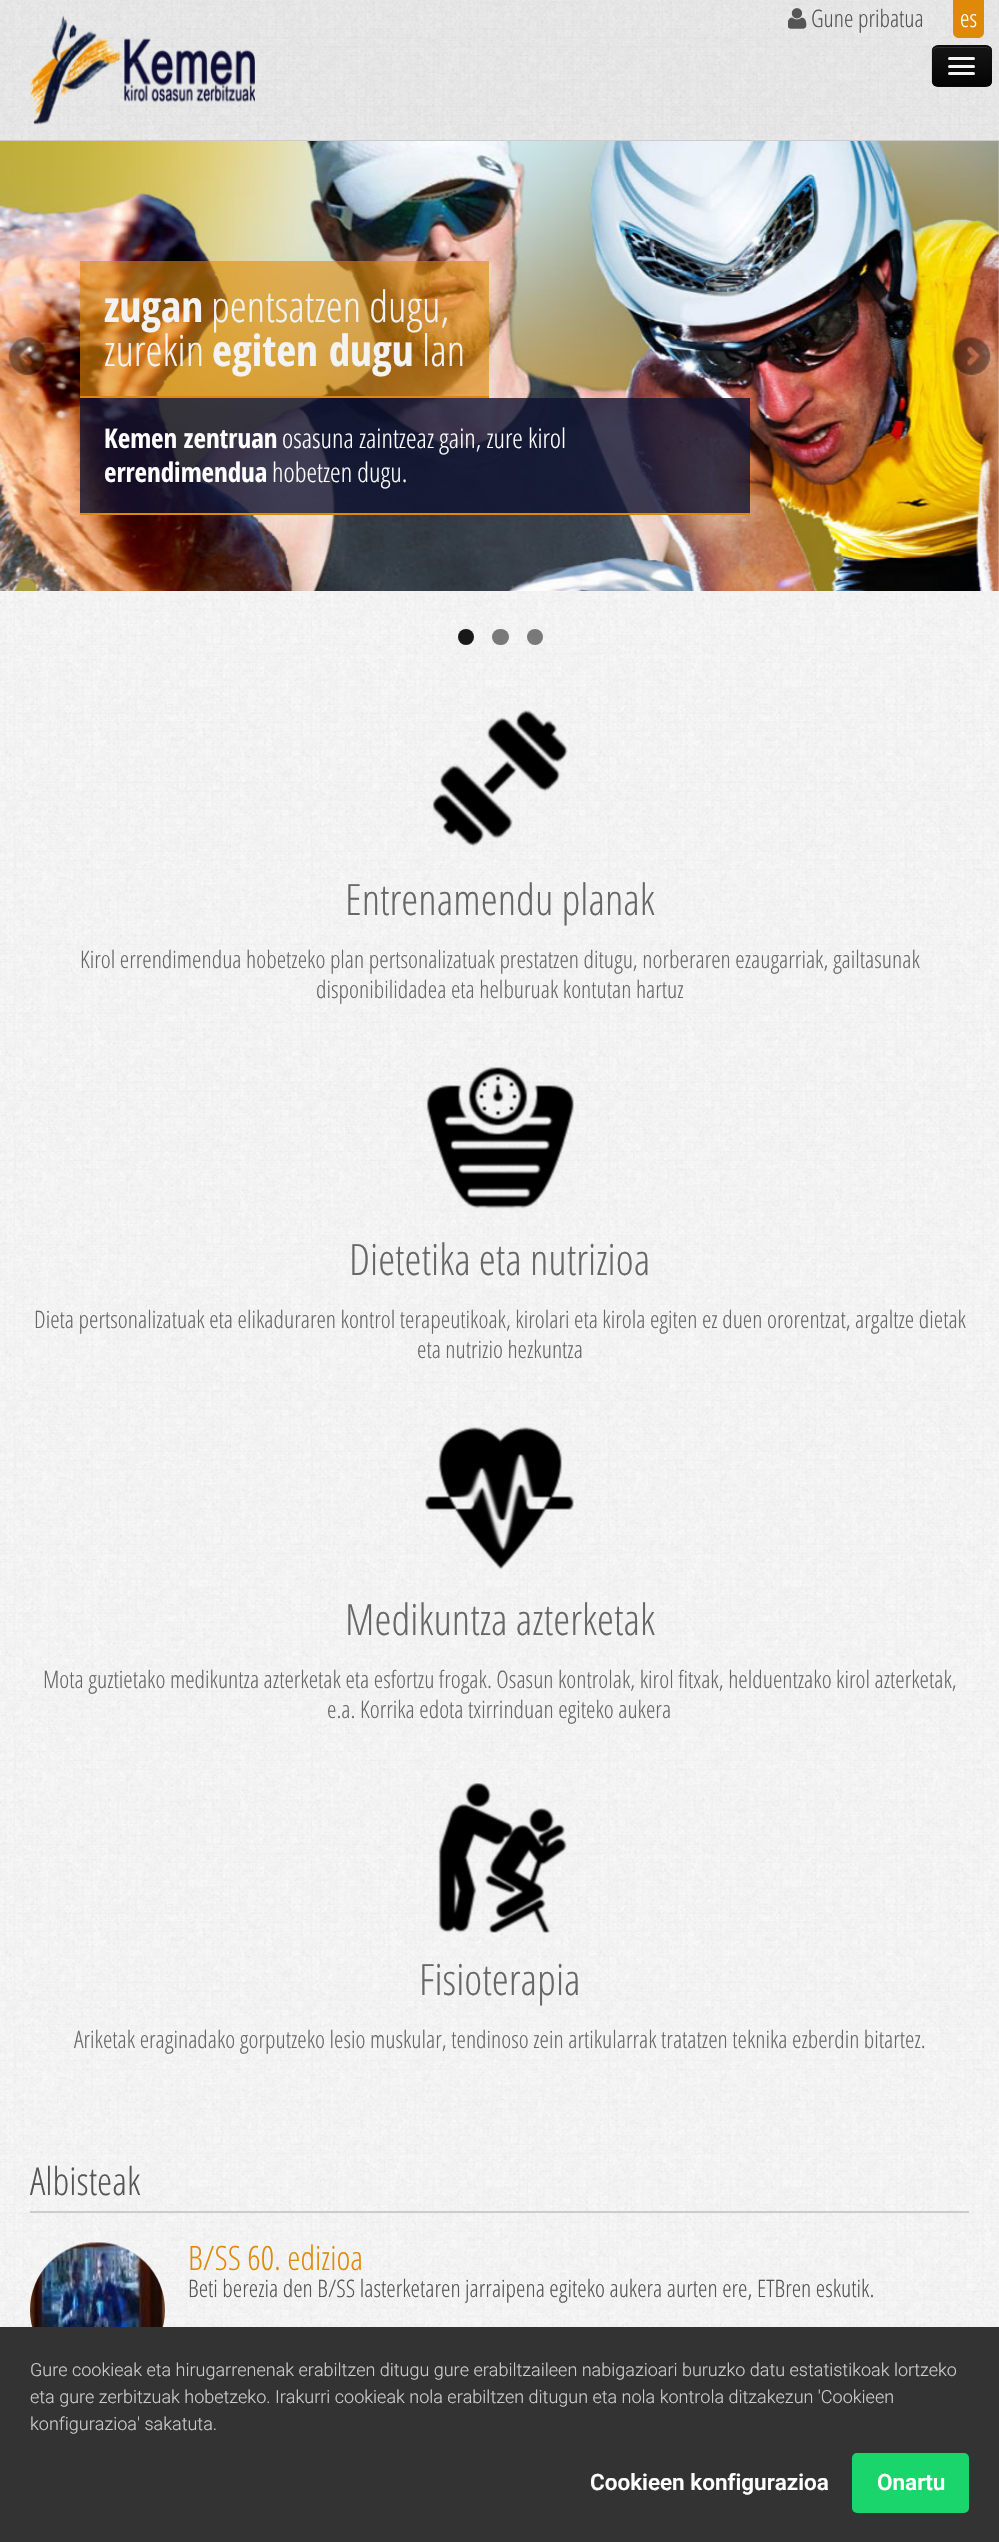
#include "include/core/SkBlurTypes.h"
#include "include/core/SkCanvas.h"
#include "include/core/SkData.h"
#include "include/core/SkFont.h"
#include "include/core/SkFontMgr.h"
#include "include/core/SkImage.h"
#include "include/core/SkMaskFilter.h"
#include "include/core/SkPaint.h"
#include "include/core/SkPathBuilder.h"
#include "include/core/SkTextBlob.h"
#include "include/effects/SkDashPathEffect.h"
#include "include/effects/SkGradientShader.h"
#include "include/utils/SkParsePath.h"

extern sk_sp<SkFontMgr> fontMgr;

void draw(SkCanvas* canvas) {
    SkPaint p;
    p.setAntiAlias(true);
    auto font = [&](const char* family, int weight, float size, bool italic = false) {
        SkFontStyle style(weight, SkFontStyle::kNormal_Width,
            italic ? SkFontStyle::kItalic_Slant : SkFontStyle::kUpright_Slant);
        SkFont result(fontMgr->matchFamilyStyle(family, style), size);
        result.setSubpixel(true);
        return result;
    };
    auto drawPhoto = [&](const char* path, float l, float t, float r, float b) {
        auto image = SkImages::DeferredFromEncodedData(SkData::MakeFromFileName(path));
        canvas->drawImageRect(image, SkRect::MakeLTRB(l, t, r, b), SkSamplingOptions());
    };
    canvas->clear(0xFFFFFFFF);
    drawPhoto("media/1.png", 0, 0, 999, 591);
    p.setColor(0xFFCCCCCC);
    canvas->drawRect(SkRect::MakeLTRB(0, 140, 999, 142), p);
    drawPhoto("media/2.png", 788, 8, 807, 29);
    auto font1 = font("Open Sans Condensed", 300, 24);
    p.setColor(0xFF555555);
    canvas->drawString("Gune pribatua", 811, 27, font1, p);
    p.setColor(0xFFDE8A08);
    canvas->drawPath(SkPathBuilder().moveTo(953, 0).lineTo(984, 0).lineTo(984, 32).cubicTo(984, 35.5f, 981.5f, 38, 978, 38).lineTo(959, 38).cubicTo(955.5f, 38, 953, 35.5f, 953, 32).close().detach(), p);
    p.setColor(0xFFFFFFFF);
    canvas->drawString("es", 960, 27, font1, p);
    drawPhoto("media/3.png", 30, 15, 255, 125);
    p.setColor(0xFF0E0E0E);
    canvas->drawRoundRect(SkRect::MakeLTRB(932, 45, 992, 87), 6, 6, p);
    canvas->save();
    canvas->clipPath(SkPathBuilder().moveTo(938, 45).lineTo(986, 45).cubicTo(989.5f, 45, 992, 47.5f, 992, 51).lineTo(992, 81).cubicTo(992, 84.5f, 989.5f, 87, 986, 87).lineTo(938, 87).cubicTo(934.5f, 87, 932, 84.5f, 932, 81).lineTo(932, 51).cubicTo(932, 47.5f, 934.5f, 45, 938, 45).close().detach(), true);
    {
        const SkColor colors[] = {0xFF151515, 0xFF040404};
        const float stops[] = {0, 1};
        const SkPoint ends[] = {{962, 47}, {962, 86}};
        p.setShader(SkGradientShader::MakeLinear(ends, colors, stops, 2, SkTileMode::kClamp));
        p.setAlpha(255);
    }
    canvas->drawRect(SkRect::MakeLTRB(932, 47, 992, 86), p);
    canvas->restore();
    p.setShader(nullptr);
    p.setColor(0xFF2C2C2C);
    canvas->drawPath(SkPathBuilder().moveTo(938, 48).lineTo(986, 48).cubicTo(988, 48, 990, 50, 990, 52).cubicTo(990, 49, 988, 47, 985, 47).lineTo(938, 47).cubicTo(935, 47, 933, 49, 933, 52).cubicTo(933, 50, 935, 48, 938, 48).close().detach(), p);
    p.setStyle(SkPaint::kStroke_Style);
    p.setStrokeWidth(1.5f);
    p.setColor(0x40000000);
    canvas->drawPath(SkPathBuilder().moveTo(989, 84.5f).cubicTo(988, 85.5f, 987, 86, 985.5f, 86).lineTo(937.5f, 86).cubicTo(936, 86, 935, 85.5f, 934, 84.5f).detach(), p);
    p.setColor(0x1A000000);
    canvas->drawPath(SkPathBuilder().moveTo(934, 84.5f).cubicTo(933, 83.5f, 932, 82.5f, 932, 81).lineTo(932, 51).cubicTo(932, 49.5f, 933, 48.5f, 934, 47.5f).cubicTo(935, 46.5f, 936, 46, 937.5f, 46).lineTo(985.5f, 46).cubicTo(987, 46, 988, 46.5f, 989, 47.5f).cubicTo(990, 48.5f, 991, 49.5f, 991, 51).lineTo(991, 81).cubicTo(991, 82.5f, 990, 83.5f, 989, 84.5f).detach(), p);
    p.setStyle(SkPaint::kFill_Style);
    p.setColor(0xFF0B0B0B);
    canvas->drawPath(SkPathBuilder().moveTo(948.5f, 59.5f).lineTo(948, 61).cubicTo(948.5f, 63, 953, 62, 953.5f, 62).lineTo(969.5f, 62).cubicTo(970, 62, 974.5f, 63, 975, 61).lineTo(974.5f, 59.5f).lineTo(973.5f, 60).lineTo(949.5f, 60).close().detach(), p);
    p.setColor(0xFFF5F5F5);
    canvas->drawRoundRect(SkRect::MakeLTRB(948, 57, 975, 60), 1.5f, 1.5f, p);
    p.setColor(0xFF090909);
    canvas->drawPath(SkPathBuilder().moveTo(948, 66.5f).cubicTo(946.5f, 70, 953.5f, 69, 953.5f, 69).lineTo(969.5f, 69).cubicTo(969.5f, 69, 976.5f, 70, 975, 66.5f).cubicTo(974.5f, 67, 974, 67.5f, 973.5f, 67.5f).lineTo(949.5f, 67.5f).cubicTo(949, 67.5f, 948.5f, 67, 948, 66.5f).close().detach(), p);
    p.setColor(0xFFF5F5F5);
    canvas->drawRoundRect(SkRect::MakeLTRB(948, 65, 975, 68), 1.5f, 1.5f, p);
    p.setColor(0xFF060606);
    canvas->drawPath(SkPathBuilder().moveTo(948.5f, 74.5f).lineTo(948, 76).cubicTo(948.5f, 78, 953, 77, 953.5f, 77).lineTo(969.5f, 77).cubicTo(970, 77, 974.5f, 78, 975, 76).lineTo(974.5f, 74.5f).lineTo(973.5f, 75).lineTo(949.5f, 75).close().detach(), p);
    p.setColor(0xFFF5F5F5);
    canvas->drawRoundRect(SkRect::MakeLTRB(948, 72, 975, 75), 1.5f, 1.5f, p);
    drawPhoto("media/4.png", 0, 141, 999, 591);
    p.setColor(0x99DE8A08);
    canvas->drawRect(SkRect::MakeLTRB(80, 261, 489, 396), p);
    p.setColor(0xFFDE8A08);
    canvas->drawRect(SkRect::MakeLTRB(80, 396, 489, 398), p);
    auto font2 = font("Open Sans Condensed", 700, 43.25f);
    p.setColor(0xFFF3F3F3);
    canvas->drawString("zugan", 104, 322, font2, p);
    auto font3 = font("Open Sans Condensed", 300, 43.25f);
    canvas->drawString("pentsatzen dugu,", 211, 322, font3, p);
    canvas->drawString("zurekin", 104, 366, font3, p);
    canvas->drawString("egiten dugu", 212, 366, font2, p);
    canvas->drawString("lan", 422, 366, font3, p);
    p.setColor(0xCC0E1230);
    canvas->drawRect(SkRect::MakeLTRB(80, 398, 750, 513), p);
    p.setColor(0xFFDE8A08);
    canvas->drawRect(SkRect::MakeLTRB(80, 513, 750, 515), p);
    auto font4 = font("Open Sans Condensed", 700, 27);
    p.setColor(0xFFFFFFFF);
    canvas->drawString("Kemen zentruan", 104, 448, font4, p);
    auto font5 = font("Open Sans Condensed", 300, 27);
    canvas->drawString("osasuna zaintzeaz gain, zure kirol", 282, 448, font5, p);
    canvas->drawString("errendimendua", 104, 482, font4, p);
    canvas->drawString("hobetzen dugu.", 272, 482, font5, p);
    drawPhoto("media/5.png", 8, 337, 47, 377);
    drawPhoto("media/6.png", 952, 337, 991, 377);
    drawPhoto("media/7.png", 0, 591, 999, 2327);
    p.setColor(0xE6000000);
    canvas->drawCircle(466, 637, 8, p);
    p.setColor(0x80000000);
    canvas->drawRoundRect(SkRect::MakeLTRB(492, 629, 509, 645), 8, 8, p);
    canvas->drawCircle(535, 637, 8, p);
    drawPhoto("media/8.png", 432, 710, 568, 847);
    p.setColor(0xFF676767);
    canvas->drawString("Entrenamendu planak", 345, 915, font3, p);
    canvas->drawString("Kirol errendimendua hobetzeko plan pertsonalizatuak prestatzen ditugu, norberaren ezaugarriak, gailtasunak", 80, 968, font1, p);
    canvas->drawString("disponibilidadea eta helburuak kontutan hartuz", 316, 998, font1, p);
    drawPhoto("media/9.png", 426, 1067, 574, 1209);
    canvas->drawString("Dietetika eta nutrizioa", 349, 1275, font3, p);
    canvas->drawString("Dieta pertsonalizatuak eta elikaduraren kontrol terapeutikoak, kirolari eta kirola egiten ez duen ororentzat, argaltze dietak", 34, 1328, font1, p);
    canvas->drawString("eta nutrizio hezkuntza", 417, 1358, font1, p);
    drawPhoto("media/10.png", 425, 1427, 574, 1570);
    canvas->drawString("Medikuntza azterketak", 345, 1635, font3, p);
    canvas->drawString("Mota guztietako medikuntza azterketak eta esfortzu frogak. Osasun kontrolak, kirol fitxak, helduentzako kirol azterketak,", 43, 1688, font1, p);
    canvas->drawString("e.a. Korrika edota txirrinduan egiteko aukera", 327, 1718, font1, p);
    drawPhoto("media/11.png", 438, 1783, 567, 1933);
    canvas->drawString("Fisioterapia", 419, 1995, font3, p);
    canvas->drawString("Ariketak eraginadako gorputzeko lesio muskular, tendinoso zein artikularrak tratatzen teknika ezberdin bitartez.", 74, 2048, font1, p);
    p.setColor(0xFFCCCCCC);
    canvas->drawRect(SkRect::MakeLTRB(30, 2211, 969, 2213), p);
    auto font6 = font("Open Sans Condensed", 300, 38.5f);
    p.setColor(0xFF555555);
    canvas->drawString("Albisteak", 30, 2195, font6, p);
    drawPhoto("media/12.png", 30, 2242, 165, 2327);
    auto font7 = font("Open Sans Condensed", 300, 33.5f);
    p.setColor(0xFFDE8A08);
    canvas->drawString("B/SS 60. edizioa", 188, 2270, font7, p);
    p.setColor(0xFF555555);
    canvas->drawString("Beti berezia den B/SS lasterketaren jarraipena egiteko aukera aurten ere, ETBren eskutik.", 188, 2297, font1, p);
    p.setColor(0xFF333333);
    canvas->drawRect(SkRect::MakeLTRB(0, 2327, 999, 2542), p);
    auto font8 = font("Roboto", 300, 18);
    p.setColor(0xFFCCCCCC);
    {
        const struct { const char* s; float x, y; } items[] = {
            {"Gure cookieak eta hirugarrenenak erabiltzen ditugu gure erabiltzaileen nabigazioari buruzko datu estatistikoak lortzeko", 30, 2376},
            {"eta gure zerbitzuak hobetzeko. Irakurri cookieak nola erabiltzen ditugun eta nola kontrola ditzakezun 'Cookieen", 30, 2403},
            {"konfigurazioa' sakatuta.", 30, 2430},
        };
        for (auto [s, x, y] : items) {
            canvas->drawString(s, x, y, font8, p);
        }
    }
    auto font9 = font("Roboto", 600, 22.5f);
    p.setColor(0xFFFFFFFF);
    canvas->drawString("Cookieen konfigurazioa", 590, 2490, font9, p);
    p.setColor(0xFF1AD56C);
    canvas->drawRoundRect(SkRect::MakeLTRB(852, 2453, 969, 2513), 5, 5, p);
    p.setColor(0xFFFFFFFF);
    canvas->drawString("Onartu", 877, 2490, font9, p);
}
